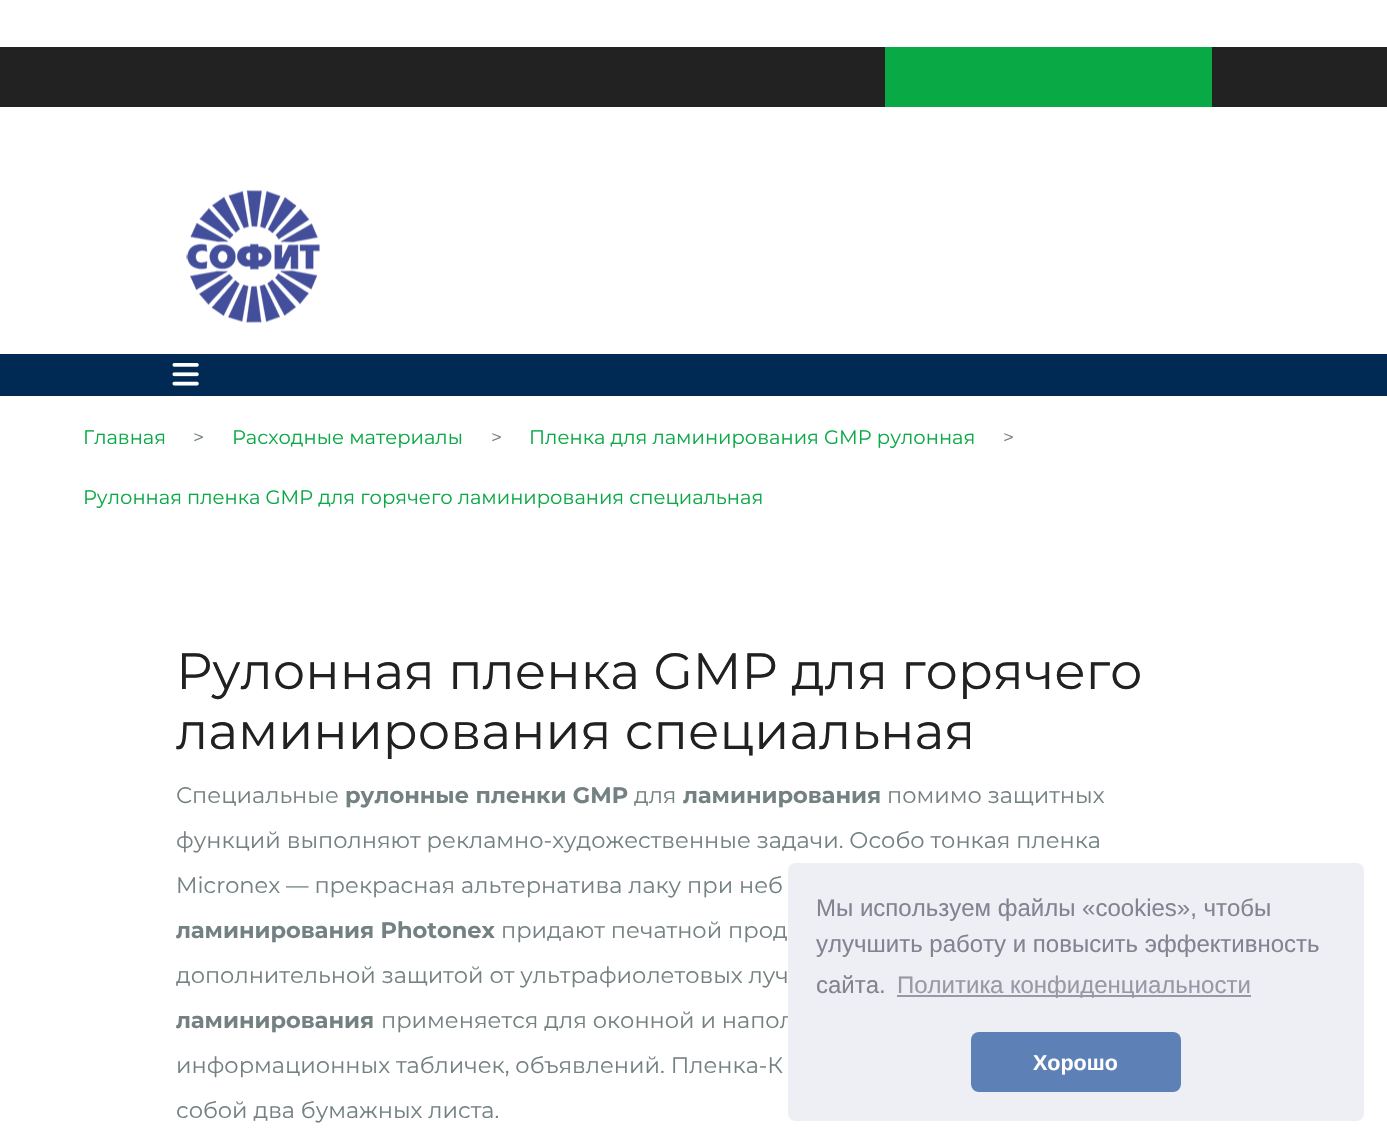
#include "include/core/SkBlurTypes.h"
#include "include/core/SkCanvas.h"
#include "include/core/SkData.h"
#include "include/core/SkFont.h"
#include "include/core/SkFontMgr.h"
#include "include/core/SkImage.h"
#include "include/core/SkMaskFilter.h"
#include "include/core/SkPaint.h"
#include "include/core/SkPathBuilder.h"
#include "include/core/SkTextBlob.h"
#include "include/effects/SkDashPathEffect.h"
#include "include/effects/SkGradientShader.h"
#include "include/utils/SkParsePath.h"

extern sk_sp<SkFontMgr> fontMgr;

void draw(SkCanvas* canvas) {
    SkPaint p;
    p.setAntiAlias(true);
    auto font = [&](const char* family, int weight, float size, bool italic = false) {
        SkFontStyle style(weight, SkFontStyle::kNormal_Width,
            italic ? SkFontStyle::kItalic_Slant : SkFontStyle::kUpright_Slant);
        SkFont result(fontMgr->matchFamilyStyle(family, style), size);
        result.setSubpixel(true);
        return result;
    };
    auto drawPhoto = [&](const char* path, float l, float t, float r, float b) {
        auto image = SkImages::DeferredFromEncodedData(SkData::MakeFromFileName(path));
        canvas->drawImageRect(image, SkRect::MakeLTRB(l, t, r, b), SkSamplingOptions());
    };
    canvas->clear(0xFFFFFFFF);
    p.setColor(0xFF222222);
    canvas->drawRect(SkRect::MakeLTRB(0, 47, 1387, 107), p);
    p.setColor(0xFF09A945);
    canvas->drawRect(SkRect::MakeLTRB(885, 47, 1212, 107), p);
    drawPhoto("media/1.png", 186, 190, 320, 323);
    p.setColor(0xFF002954);
    canvas->drawRect(SkRect::MakeLTRB(0, 354, 1387, 396), p);
    drawPhoto("media/2.png", 172, 363, 199, 386);
    auto font1 = font("Montserrat", 400, 19.5f);
    p.setColor(0xFF09A945);
    canvas->drawString("Главная", 83, 444, font1, p);
    p.setColor(0xFF748182);
    canvas->drawString(">", 193, 444, font1, p);
    p.setColor(0xFF09A945);
    canvas->drawString("Расходные материалы", 232, 444, font1, p);
    p.setColor(0xFF748182);
    canvas->drawString(">", 491, 444, font1, p);
    p.setColor(0xFF09A945);
    canvas->drawString("Пленка для ламинирования GMP рулонная", 529, 444, font1, p);
    p.setColor(0xFF748182);
    canvas->drawString(">", 1003, 444, font1, p);
    p.setColor(0xFF09A945);
    canvas->drawString("Рулонная пленка GMP для горячего ламинирования специальная", 83, 504, font1, p);
    auto font2 = font("Montserrat", 400, 51);
    p.setColor(0xFF212121);
    canvas->drawString("Рулонная пленка GMP для горячего", 176, 689, font2, p);
    canvas->drawString("ламинирования специальная", 176, 749, font2, p);
    auto font3 = font("Montserrat", 400, 22.5f);
    p.setColor(0xFF748182);
    canvas->drawString("Специальные", 176, 803, font3, p);
    auto font4 = font("Montserrat", 700, 22.5f);
    canvas->drawString("рулонные пленки GMP", 345, 803, font4, p);
    canvas->drawString("для", 634, 803, font3, p);
    canvas->drawString("ламинирования", 683, 803, font4, p);
    {
        const struct { const char* s; float x, y; } items[] = {
            {"помимо защитных", 887, 803},
            {"функций выполняют рекламно-художественные задачи. Особо тонкая пленка", 176, 848},
            {"Micronex — прекрасная альтернатива лаку при неб", 176, 893},
        };
        for (auto [s, x, y] : items) {
            canvas->drawString(s, x, y, font3, p);
        }
    }
    canvas->drawString("ламинирования Photonex", 176, 938, font4, p);
    canvas->drawString("придают печатной прод", 501, 938, font3, p);
    canvas->drawString("дополнительной защитой от ультрафиолетовых луч", 176, 983, font3, p);
    canvas->drawString("ламинирования", 176, 1028, font4, p);
    {
        const struct { const char* s; float x, y; } items[] = {
            {"применяется для оконной и напол", 381, 1028},
            {"информационных табличек, объявлений. Пленка-К", 176, 1073},
            {"собой два бумажных листа.", 176, 1118},
        };
        for (auto [s, x, y] : items) {
            canvas->drawString(s, x, y, font3, p);
        }
    }
    p.setColor(0xFFEDEFF5);
    canvas->drawRoundRect(SkRect::MakeLTRB(788, 863, 1364, 1121), 8, 8, p);
    auto font5 = font("Liberation Sans", 400, 24);
    p.setColor(0xFF838391);
    {
        const struct { const char* s; float x, y; } items[] = {
            {"Мы используем файлы «cookies», чтобы", 816, 916},
            {"улучшить работу и повысить эффективность", 816, 952},
            {"сайта.", 816, 993},
        };
        for (auto [s, x, y] : items) {
            canvas->drawString(s, x, y, font5, p);
        }
    }
    p.setColor(0xFF9899A5);
    canvas->drawRect(SkRect::MakeLTRB(897, 995, 1251, 997), p);
    canvas->drawString("Политика конфиденциальности", 897, 993, font5, p);
    p.setColor(0xFF5D80B6);
    canvas->drawRoundRect(SkRect::MakeLTRB(971, 1032, 1181, 1092), 8, 8, p);
    auto font6 = font("Liberation Sans", 700, 21.5f);
    p.setColor(0xFFFFFFFF);
    canvas->drawString("Хорошо", 1033, 1070, font6, p);
}
